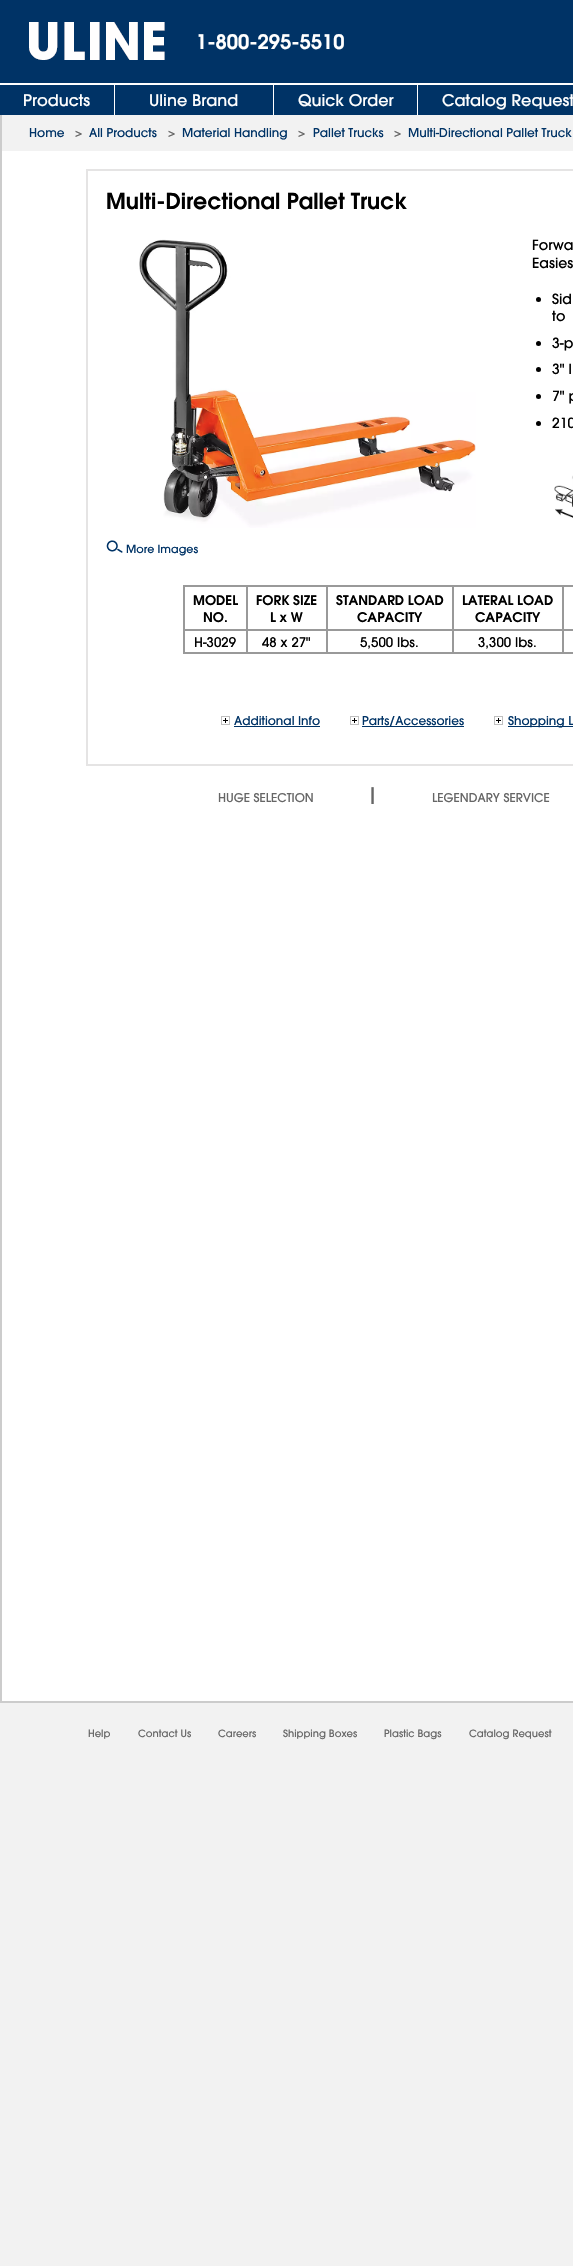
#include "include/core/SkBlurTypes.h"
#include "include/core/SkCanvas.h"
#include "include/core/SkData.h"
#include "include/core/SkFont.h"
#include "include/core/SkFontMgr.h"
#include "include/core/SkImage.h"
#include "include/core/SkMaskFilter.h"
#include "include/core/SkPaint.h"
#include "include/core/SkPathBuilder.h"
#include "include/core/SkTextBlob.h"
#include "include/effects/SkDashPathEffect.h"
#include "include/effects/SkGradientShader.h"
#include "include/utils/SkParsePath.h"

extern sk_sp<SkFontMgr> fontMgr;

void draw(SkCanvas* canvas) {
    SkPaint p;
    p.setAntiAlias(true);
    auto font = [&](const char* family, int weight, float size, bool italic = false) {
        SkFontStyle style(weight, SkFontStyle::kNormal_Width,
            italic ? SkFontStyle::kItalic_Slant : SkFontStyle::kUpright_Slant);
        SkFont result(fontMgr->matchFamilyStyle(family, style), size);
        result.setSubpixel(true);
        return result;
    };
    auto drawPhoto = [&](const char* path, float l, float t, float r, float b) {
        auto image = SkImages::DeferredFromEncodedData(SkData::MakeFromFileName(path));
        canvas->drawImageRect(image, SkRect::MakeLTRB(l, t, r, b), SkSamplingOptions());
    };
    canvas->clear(0xFFF2F2F2);
    p.setColor(0xFFFFFFFF);
    canvas->drawRect(SkRect::MakeLTRB(2, 151, 573, 1701), p);
    p.setColor(0xFF003366);
    canvas->drawRect(SkRect::MakeLTRB(0, 0, 573, 115), p);
    drawPhoto("media/1.png", 29, 22, 165, 60);
    auto font1 = font("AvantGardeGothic", 600, 20);
    p.setColor(0xFFFFFFFF);
    canvas->drawString("1-800-295-5510", 196, 49, font1, p);
    canvas->drawRect(SkRect::MakeLTRB(0, 83, 573, 85), p);
    canvas->drawRect(SkRect::MakeLTRB(114, 85, 115, 115), p);
    auto font2 = font("AvantGardeGothic", 500, 16);
    canvas->drawString("Products", 23, 106, font2, p);
    canvas->drawRect(SkRect::MakeLTRB(273, 85, 274, 115), p);
    canvas->drawString("Uline Brand", 149, 106, font2, p);
    canvas->drawRect(SkRect::MakeLTRB(417, 85, 418, 115), p);
    canvas->drawString("Quick Order", 298, 106, font2, p);
    canvas->drawString("Catalog Request", 442, 106, font2, p);
    p.setColor(0xFFCCCCCC);
    canvas->drawRect(SkRect::MakeLTRB(0, 1701, 573, 1703), p);
    canvas->drawRect(SkRect::MakeLTRB(0, 115, 2, 1703), p);
    auto font3 = font("AvantGardeGothic", 500, 12);
    p.setColor(0xFF003366);
    canvas->drawString("Home", 29, 137, font3, p);
    p.setColor(0xFF666666);
    canvas->drawString(">", 75, 137, font3, p);
    p.setColor(0xFF003366);
    canvas->drawString("All Products", 89, 137, font3, p);
    p.setColor(0xFF666666);
    canvas->drawString(">", 168, 137, font3, p);
    p.setColor(0xFF003366);
    canvas->drawString("Material Handling", 182, 137, font3, p);
    p.setColor(0xFF666666);
    canvas->drawString(">", 298, 137, font3, p);
    p.setColor(0xFF003366);
    canvas->drawString("Pallet Trucks", 313, 137, font3, p);
    p.setColor(0xFF666666);
    canvas->drawString(">", 394, 137, font3, p);
    p.setColor(0xFF003366);
    canvas->drawString("Multi-Directional Pallet Truck", 408, 137, font3, p);
    p.setStyle(SkPaint::kStroke_Style);
    p.setStrokeWidth(2);
    p.setColor(0xFFE5E4E4);
    canvas->drawRect(SkRect::MakeLTRB(87, 170, 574, 765), p);
    auto font4 = font("AvantGardeGothic", 600, 22);
    p.setStyle(SkPaint::kFill_Style);
    p.setColor(0xFF000000);
    canvas->drawString("Multi-Directional Pallet Truck", 106, 209, font4, p);
    auto font5 = font("AvantGardeGothic", 500, 14);
    canvas->drawString("Forwa", 532, 250, font5, p);
    canvas->drawString("Easies", 532, 268, font5, p);
    canvas->drawCircle(538.5f, 299.5f, 2.5f, p);
    canvas->drawString("Sid", 552, 304, font5, p);
    canvas->drawString("to", 552, 321, font5, p);
    canvas->drawCircle(538.5f, 343.5f, 2.5f, p);
    canvas->drawString("3-p", 552, 348, font5, p);
    canvas->drawCircle(538.5f, 369.5f, 2.5f, p);
    canvas->drawString("3\" l", 552, 374, font5, p);
    canvas->drawCircle(538.5f, 396.5f, 2.5f, p);
    canvas->drawString("7\" p", 552, 401, font5, p);
    canvas->drawCircle(538.5f, 423.5f, 2.5f, p);
    canvas->drawString("210", 552, 428, font5, p);
    drawPhoto("media/2.png", 554, 475, 573, 518);
    drawPhoto("media/3.png", 139, 239, 476, 528);
    drawPhoto("media/4.png", 106, 540, 123, 553);
    auto font6 = font("AvantGardeGothic", 500, 11);
    p.setColor(0xFF003366);
    canvas->drawString("More Images", 126, 553, font6, p);
    p.setStyle(SkPaint::kStroke_Style);
    p.setStrokeWidth(1);
    p.setColor(0xFF999999);
    canvas->drawRect(SkRect::MakeLTRB(183.5f, 585.5f, 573.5f, 653.5f), p);
    canvas->drawRect(SkRect::MakeLTRB(184.5f, 586.5f, 246.5f, 629.5f), p);
    auto font7 = font("AvantGardeGothic", 600, 13.25f);
    p.setStyle(SkPaint::kFill_Style);
    p.setColor(0xFF000000);
    canvas->drawString("MODEL", 193, 605, font7, p);
    canvas->drawString("NO.", 203, 622, font7, p);
    p.setStyle(SkPaint::kStroke_Style);
    p.setColor(0xFF999999);
    canvas->drawRect(SkRect::MakeLTRB(247.5f, 586.5f, 326.5f, 629.5f), p);
    p.setStyle(SkPaint::kFill_Style);
    p.setColor(0xFF000000);
    canvas->drawString("FORK SIZE", 256, 605, font7, p);
    canvas->drawString("L x W", 270, 622, font7, p);
    p.setStyle(SkPaint::kStroke_Style);
    p.setColor(0xFF999999);
    canvas->drawRect(SkRect::MakeLTRB(327.5f, 586.5f, 452.5f, 629.5f), p);
    p.setStyle(SkPaint::kFill_Style);
    p.setColor(0xFF000000);
    canvas->drawString("STANDARD LOAD", 336, 605, font7, p);
    canvas->drawString("CAPACITY", 357, 622, font7, p);
    p.setStyle(SkPaint::kStroke_Style);
    p.setColor(0xFF999999);
    canvas->drawRect(SkRect::MakeLTRB(453.5f, 586.5f, 562.5f, 629.5f), p);
    p.setStyle(SkPaint::kFill_Style);
    p.setColor(0xFF000000);
    canvas->drawString("LATERAL LOAD", 462, 605, font7, p);
    canvas->drawString("CAPACITY", 475, 622, font7, p);
    p.setStyle(SkPaint::kStroke_Style);
    p.setColor(0xFF999999);
    canvas->drawRect(SkRect::MakeLTRB(563.5f, 586.5f, 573.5f, 629.5f), p);
    canvas->drawRect(SkRect::MakeLTRB(184.5f, 630.5f, 246.5f, 652.5f), p);
    auto font8 = font("AvantGardeGothic", 500, 13.25f);
    p.setStyle(SkPaint::kFill_Style);
    p.setColor(0xFF000000);
    canvas->drawString("H-3029", 194, 647, font8, p);
    p.setStyle(SkPaint::kStroke_Style);
    p.setColor(0xFF999999);
    canvas->drawRect(SkRect::MakeLTRB(247.5f, 630.5f, 326.5f, 652.5f), p);
    p.setStyle(SkPaint::kFill_Style);
    p.setColor(0xFF000000);
    canvas->drawString("48 x 27\"", 262, 647, font8, p);
    p.setStyle(SkPaint::kStroke_Style);
    p.setColor(0xFF999999);
    canvas->drawRect(SkRect::MakeLTRB(327.5f, 630.5f, 452.5f, 652.5f), p);
    p.setStyle(SkPaint::kFill_Style);
    p.setColor(0xFF000000);
    canvas->drawString("5,500 lbs.", 360, 647, font8, p);
    p.setStyle(SkPaint::kStroke_Style);
    p.setColor(0xFF999999);
    canvas->drawRect(SkRect::MakeLTRB(453.5f, 630.5f, 562.5f, 652.5f), p);
    p.setStyle(SkPaint::kFill_Style);
    p.setColor(0xFF000000);
    canvas->drawString("3,300 lbs.", 478, 647, font8, p);
    p.setStyle(SkPaint::kStroke_Style);
    p.setColor(0xFF999999);
    canvas->drawRect(SkRect::MakeLTRB(563.5f, 630.5f, 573.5f, 652.5f), p);
    drawPhoto("media/5.png", 221, 716, 230, 725);
    p.setStyle(SkPaint::kFill_Style);
    p.setColor(0xFF003366);
    canvas->drawString("Additional Info", 234, 725, font3, p);
    canvas->drawRect(SkRect::MakeLTRB(234, 726, 320, 727), p);
    drawPhoto("media/5.png", 350, 716, 359, 725);
    canvas->drawRect(SkRect::MakeLTRB(362, 726, 464, 727), p);
    canvas->drawString("Parts/Accessories", 362, 725, font3, p);
    drawPhoto("media/5.png", 494, 716, 503, 725);
    canvas->drawRect(SkRect::MakeLTRB(508, 726, 573, 727), p);
    canvas->drawString("Shopping L", 508, 725, font3, p);
    p.setColor(0xFF666666);
    canvas->drawString("HUGE SELECTION", 218, 802, font3, p);
    auto font9 = font("AvantGardeGothic", 500, 20);
    canvas->drawString("|", 367, 802, font9, p);
    canvas->drawString("LEGENDARY SERVICE", 432, 802, font3, p);
    auto font10 = font("AvantGardeGothic", 500, 10);
    {
        const struct { const char* s; float x, y; } items[] = {
            {"Help", 88, 1737},
            {"Contact Us", 138, 1737},
            {"Careers", 218, 1737},
            {"Shipping Boxes", 283, 1737},
            {"Plastic Bags", 384, 1737},
            {"Catalog Request", 469, 1737},
        };
        for (auto [s, x, y] : items) {
            canvas->drawString(s, x, y, font10, p);
        }
    }
}
